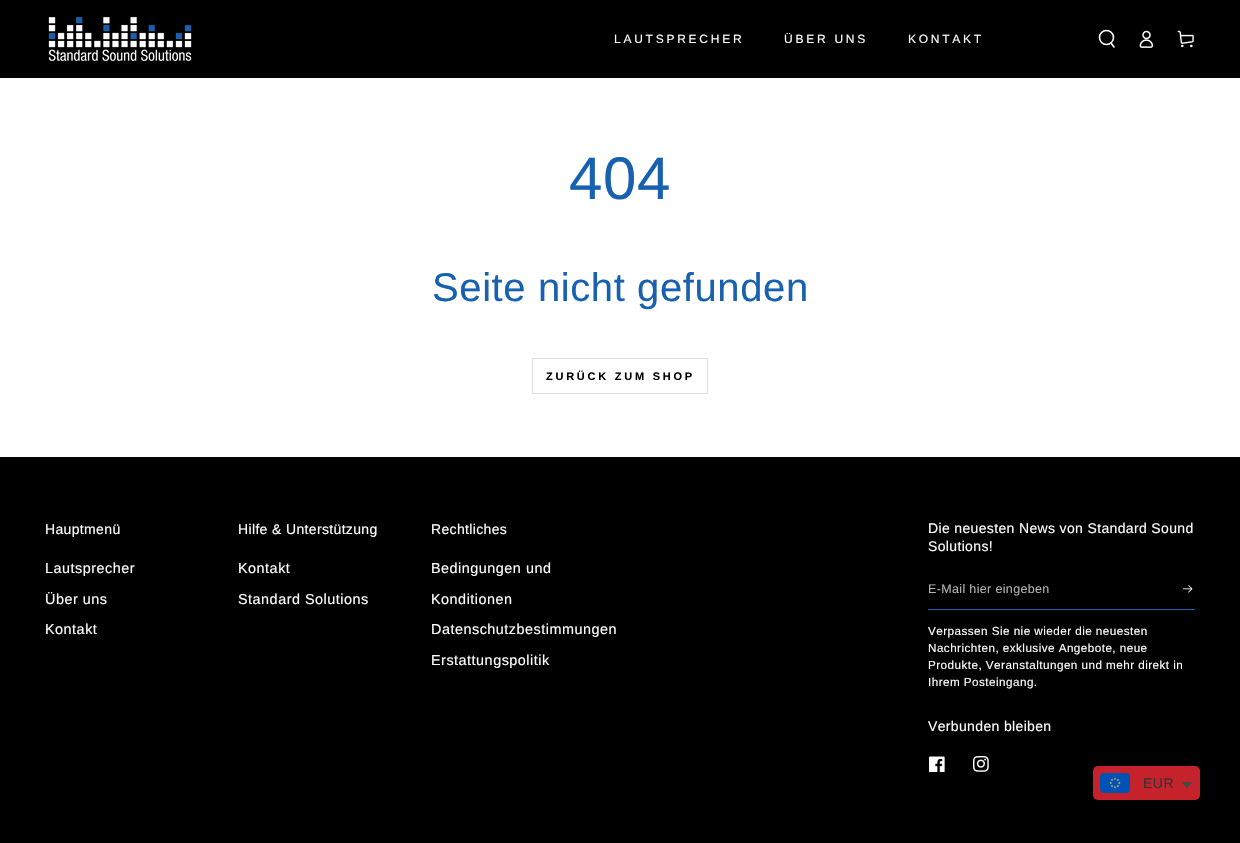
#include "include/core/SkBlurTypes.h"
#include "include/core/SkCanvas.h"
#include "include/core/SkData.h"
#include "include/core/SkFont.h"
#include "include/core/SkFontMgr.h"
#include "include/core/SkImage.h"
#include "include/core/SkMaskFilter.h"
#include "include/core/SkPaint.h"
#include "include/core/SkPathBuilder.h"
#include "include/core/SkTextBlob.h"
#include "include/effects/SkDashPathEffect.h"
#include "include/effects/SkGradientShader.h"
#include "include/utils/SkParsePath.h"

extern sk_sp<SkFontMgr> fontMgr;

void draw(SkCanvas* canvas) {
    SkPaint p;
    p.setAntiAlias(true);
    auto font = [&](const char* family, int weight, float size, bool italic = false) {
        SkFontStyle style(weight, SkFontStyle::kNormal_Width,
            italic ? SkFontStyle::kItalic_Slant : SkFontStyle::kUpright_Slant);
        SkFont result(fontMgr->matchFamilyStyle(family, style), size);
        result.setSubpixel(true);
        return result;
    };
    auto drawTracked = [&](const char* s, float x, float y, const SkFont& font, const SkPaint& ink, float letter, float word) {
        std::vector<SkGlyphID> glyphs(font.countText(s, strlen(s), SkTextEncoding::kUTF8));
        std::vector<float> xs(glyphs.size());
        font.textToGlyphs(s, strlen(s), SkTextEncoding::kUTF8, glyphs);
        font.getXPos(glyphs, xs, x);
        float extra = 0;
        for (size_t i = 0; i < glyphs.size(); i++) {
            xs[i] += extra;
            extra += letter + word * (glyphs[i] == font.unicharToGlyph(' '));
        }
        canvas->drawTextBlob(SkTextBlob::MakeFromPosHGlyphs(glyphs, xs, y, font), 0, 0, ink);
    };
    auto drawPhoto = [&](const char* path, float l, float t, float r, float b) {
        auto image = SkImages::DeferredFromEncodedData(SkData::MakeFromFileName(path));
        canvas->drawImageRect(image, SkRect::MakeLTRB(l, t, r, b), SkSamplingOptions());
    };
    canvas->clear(0xFFFFFFFF);
    p.setColor(0xFF000000);
    canvas->drawRect(SkRect::MakeLTRB(0, 0, 1240, 78), p);
    drawPhoto("media/1.png", 48, 16, 192, 61);
    auto font1 = font("Liberation Sans", 400, 12);
    p.setColor(0xFFFFFFFF);
    {
        const struct { const char* s; float x, y; } items[] = {
            {"LAUTSPRECHER", 614, 43},
            {"ÜBER UNS", 784, 43},
            {"KONTAKT", 908, 43},
        };
        for (auto [s, x, y] : items) {
            drawTracked(s, x, y, font1, p, 2.75f, 0);
        }
    }
    p.setStyle(SkPaint::kStroke_Style);
    p.setStrokeWidth(1.6f);
    canvas->drawCircle(1106.5f, 37.5f, 7, p);
    p.setStrokeCap(SkPaint::kRound_Cap);
    canvas->drawPath(SkPathBuilder().moveTo(1111, 43).lineTo(1114, 47).detach(), p);
    drawPhoto("media/2.png", 1139, 30, 1154, 48);
    drawPhoto("media/3.png", 1177, 30, 1194, 48);
    auto font2 = font("Liberation Sans", 400, 60);
    p.setStyle(SkPaint::kFill_Style);
    p.setColor(0xFF1861B0);
    drawTracked("404", 569, 199, font2, p, 0.6f, 0);
    auto font3 = font("Liberation Sans", 400, 40);
    drawTracked("Seite nicht gefunden", 432, 301, font3, p, 0.6f, 0);
    p.setStyle(SkPaint::kStroke_Style);
    p.setStrokeWidth(0.9f);
    p.setStrokeCap(SkPaint::kButt_Cap);
    p.setColor(0xFFDADADA);
    canvas->drawRect(SkRect::MakeLTRB(532.45f, 358.45f, 707.55f, 393.55f), p);
    auto font4 = font("Liberation Sans", 700, 11);
    p.setStyle(SkPaint::kFill_Style);
    p.setColor(0xFF000000);
    drawTracked("ZURÜCK ZUM SHOP", 546, 380, font4, p, 2.75f, 0);
    canvas->drawRect(SkRect::MakeLTRB(0, 457, 1240, 843), p);
    auto font5 = font("Liberation Sans", 400, 14);
    p.setColor(0xFFFFFFFF);
    drawTracked("Hauptmenü", 45, 534, font5, p, 0.35f, 0);
    auto font6 = font("Liberation Sans", 400, 14.4f);
    {
        const struct { const char* s; float x, y; } items[] = {
            {"Lautsprecher", 45, 573},
            {"Über uns", 45, 604},
            {"Kontakt", 45, 634},
        };
        for (auto [s, x, y] : items) {
            drawTracked(s, x, y, font6, p, 0.5f, 0);
        }
    }
    drawTracked("Hilfe & Unterstützung", 238, 534, font5, p, 0.35f, 0);
    drawTracked("Kontakt", 238, 573, font6, p, 0.5f, 0);
    drawTracked("Standard Solutions", 238, 604, font6, p, 0.5f, 0);
    drawTracked("Rechtliches", 431, 534, font5, p, 0.35f, 0);
    {
        const struct { const char* s; float x, y; } items[] = {
            {"Bedingungen und", 431, 573},
            {"Konditionen", 431, 604},
            {"Datenschutzbestimmungen", 431, 634},
            {"Erstattungspolitik", 431, 665},
        };
        for (auto [s, x, y] : items) {
            drawTracked(s, x, y, font6, p, 0.5f, 0);
        }
    }
    drawTracked("Die neuesten News von Standard Sound", 928, 533, font5, p, 0.35f, 0);
    drawTracked("Solutions!", 928, 551, font5, p, 0.35f, 0);
    p.setColor(0xFF1861B0);
    canvas->drawRect(SkRect::MakeLTRB(928, 609, 1195, 610), p);
    auto font7 = font("Liberation Sans", 400, 12.5f);
    p.setColor(0xFFB3B3B3);
    drawTracked("E-Mail hier eingeben", 928, 593, font7, p, 0.35f, 0);
    drawPhoto("media/4.png", 1183, 585, 1193, 593);
    auto font8 = font("Liberation Sans", 400, 11.7f);
    p.setColor(0xFFFFFFFF);
    {
        const struct { const char* s; float x, y; } items[] = {
            {"Verpassen Sie nie wieder die neuesten", 928, 635},
            {"Nachrichten, exklusive Angebote, neue", 928, 652},
            {"Produkte, Veranstaltungen und mehr direkt in", 928, 669},
            {"Ihrem Posteingang.", 928, 686},
        };
        for (auto [s, x, y] : items) {
            drawTracked(s, x, y, font8, p, 0.45f, 0);
        }
    }
    drawTracked("Verbunden bleiben", 928, 731, font5, p, 0.35f, 0);
    drawPhoto("media/5.png", 929, 756, 945, 772);
    drawPhoto("media/6.png", 973, 756, 989, 772);
    p.setColor(0xFFC6222B);
    canvas->drawRoundRect(SkRect::MakeLTRB(1093, 766, 1200, 800), 5, 5, p);
    drawPhoto("media/7.png", 1100, 773, 1130, 793);
    p.setColor(0xFF333333);
    drawTracked("EUR", 1143, 788, font5, p, 0.5f, 0);
    p.setColor(0xFF474942);
    canvas->drawPath(SkPathBuilder().moveTo(1184, 782).cubicTo(1183, 782, 1182.5f, 782.5f, 1182, 783).lineTo(1187, 788).lineTo(1192, 783).lineTo(1191, 782).close().detach(), p);
}
